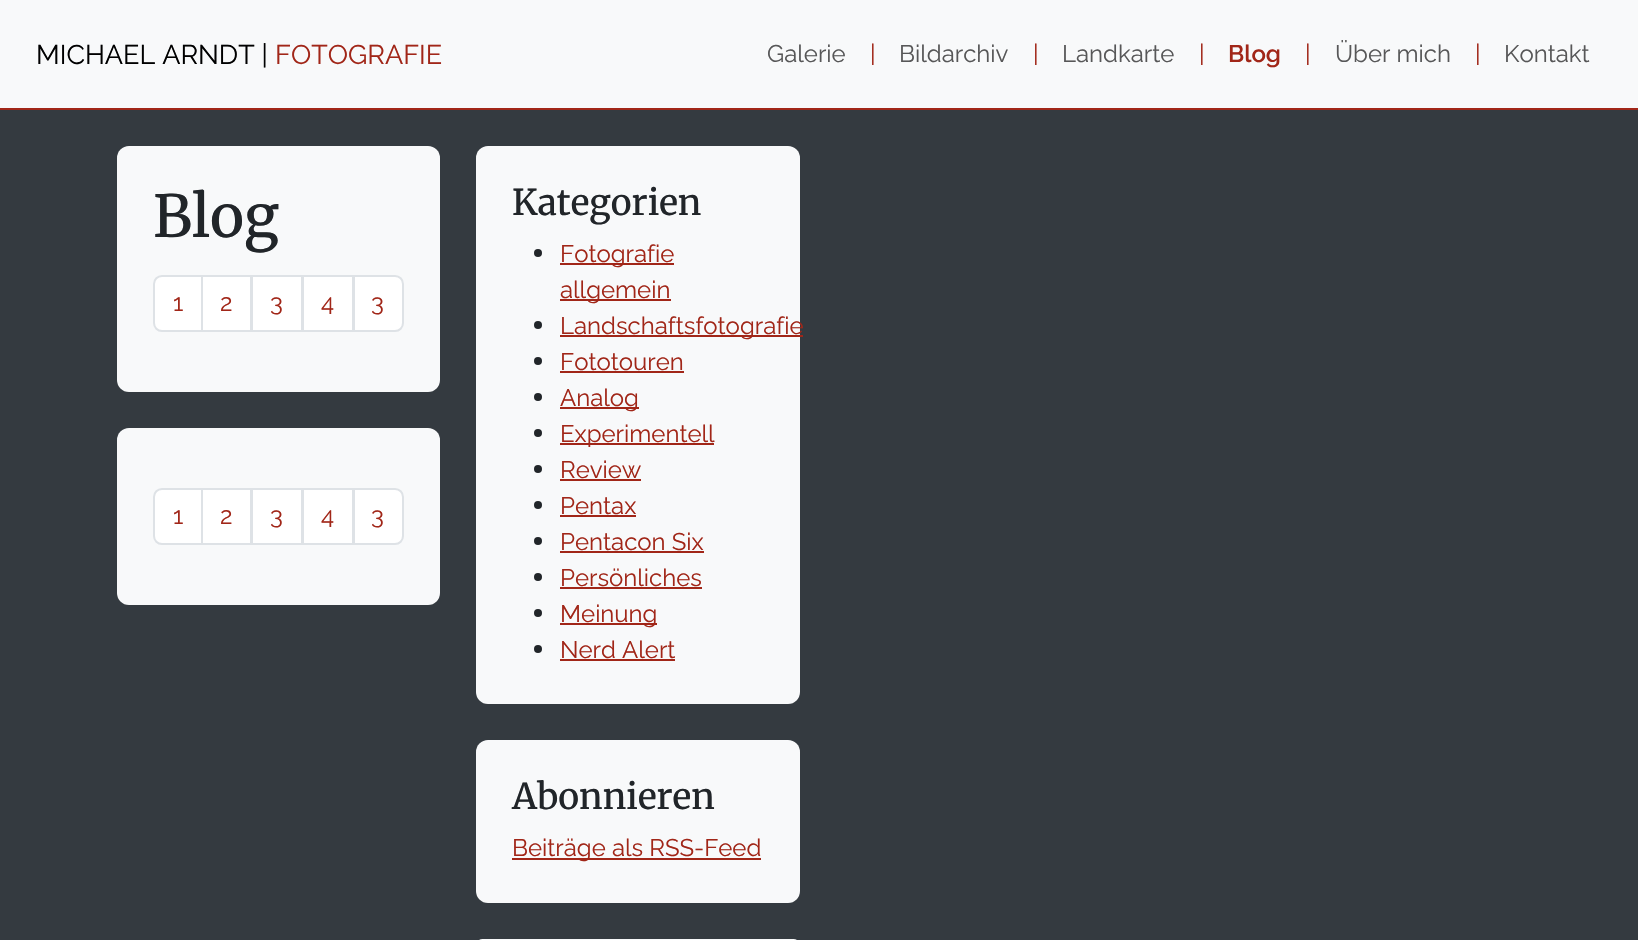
#include "include/core/SkBlurTypes.h"
#include "include/core/SkCanvas.h"
#include "include/core/SkData.h"
#include "include/core/SkFont.h"
#include "include/core/SkFontMgr.h"
#include "include/core/SkImage.h"
#include "include/core/SkMaskFilter.h"
#include "include/core/SkPaint.h"
#include "include/core/SkPathBuilder.h"
#include "include/core/SkTextBlob.h"
#include "include/effects/SkDashPathEffect.h"
#include "include/effects/SkGradientShader.h"
#include "include/utils/SkParsePath.h"

extern sk_sp<SkFontMgr> fontMgr;

void draw(SkCanvas* canvas) {
    SkPaint p;
    p.setAntiAlias(true);
    auto font = [&](const char* family, int weight, float size, bool italic = false) {
        SkFontStyle style(weight, SkFontStyle::kNormal_Width,
            italic ? SkFontStyle::kItalic_Slant : SkFontStyle::kUpright_Slant);
        SkFont result(fontMgr->matchFamilyStyle(family, style), size);
        result.setSubpixel(true);
        return result;
    };
    canvas->clear(0xFF343A40);
    p.setColor(0xFFF8F9FA);
    canvas->drawRect(SkRect::MakeLTRB(0, 0, 1638, 108), p);
    p.setColor(0xFFA12618);
    canvas->drawRect(SkRect::MakeLTRB(0, 108, 1638, 110), p);
    auto font1 = font("Raleway", 400, 27);
    p.setColor(0xFF000000);
    canvas->drawString("MICHAEL ARNDT |", 36, 64, font1, p);
    p.setColor(0xFFA12618);
    canvas->drawString("FOTOGRAFIE", 275, 64, font1, p);
    auto font2 = font("Raleway", 400, 24);
    p.setColor(0xFF575758);
    canvas->drawString("Galerie", 767, 62, font2, p);
    p.setColor(0xFFA12618);
    canvas->drawString("|", 870, 62, font2, p);
    p.setColor(0xFF575758);
    canvas->drawString("Bildarchiv", 899, 62, font2, p);
    p.setColor(0xFFA12618);
    canvas->drawString("|", 1033, 62, font2, p);
    p.setColor(0xFF575758);
    canvas->drawString("Landkarte", 1062, 62, font2, p);
    p.setColor(0xFFA12618);
    canvas->drawString("|", 1199, 62, font2, p);
    auto font3 = font("Raleway", 600, 24);
    canvas->drawString("Blog", 1228, 62, font3, p);
    canvas->drawString("|", 1305, 62, font2, p);
    p.setColor(0xFF575758);
    canvas->drawString("Über mich", 1335, 62, font2, p);
    p.setColor(0xFFA12618);
    canvas->drawString("|", 1475, 62, font2, p);
    p.setColor(0xFF575758);
    canvas->drawString("Kontakt", 1504, 62, font2, p);
    p.setColor(0xFFF8F9FA);
    canvas->drawRoundRect(SkRect::MakeLTRB(117, 146, 440, 392), 12, 12, p);
    auto font4 = font("Merriweather", 500, 58);
    p.setColor(0xFF212529);
    canvas->drawString("Blog", 153, 237, font4, p);
    p.setColor(0xFFFFFFFF);
    canvas->drawPath(SkPathBuilder().moveTo(162, 276).lineTo(202, 276).lineTo(202, 331).lineTo(162, 331).cubicTo(157.5f, 331, 154, 327.5f, 154, 323).lineTo(154, 284).cubicTo(154, 279.5f, 157.5f, 276, 162, 276).close().detach(), p);
    p.setStyle(SkPaint::kStroke_Style);
    p.setStrokeWidth(2);
    p.setColor(0xFFDEE2E6);
    canvas->drawPath(SkPathBuilder().moveTo(162, 276).lineTo(202, 276).lineTo(202, 331).lineTo(162, 331).cubicTo(157.5f, 331, 154, 327.5f, 154, 323).lineTo(154, 284).cubicTo(154, 279.5f, 157.5f, 276, 162, 276).close().detach(), p);
    p.setStyle(SkPaint::kFill_Style);
    p.setColor(0xFFA12618);
    canvas->drawString("1", 173, 311, font2, p);
    p.setColor(0xFFFFFFFF);
    canvas->drawRect(SkRect::MakeLTRB(202, 276, 251, 331), p);
    p.setStyle(SkPaint::kStroke_Style);
    p.setColor(0xFFDEE2E6);
    canvas->drawRect(SkRect::MakeLTRB(202, 276, 251, 331), p);
    p.setStyle(SkPaint::kFill_Style);
    p.setColor(0xFFA12618);
    canvas->drawString("2", 220, 311, font2, p);
    p.setColor(0xFFFFFFFF);
    canvas->drawRect(SkRect::MakeLTRB(252, 276, 302, 331), p);
    p.setStyle(SkPaint::kStroke_Style);
    p.setColor(0xFFDEE2E6);
    canvas->drawRect(SkRect::MakeLTRB(252, 276, 302, 331), p);
    p.setStyle(SkPaint::kFill_Style);
    p.setColor(0xFFA12618);
    canvas->drawString("3", 270, 311, font2, p);
    p.setColor(0xFFFFFFFF);
    canvas->drawRect(SkRect::MakeLTRB(303, 276, 353, 331), p);
    p.setStyle(SkPaint::kStroke_Style);
    p.setColor(0xFFDEE2E6);
    canvas->drawRect(SkRect::MakeLTRB(303, 276, 353, 331), p);
    p.setStyle(SkPaint::kFill_Style);
    p.setColor(0xFFA12618);
    canvas->drawString("4", 321, 311, font2, p);
    p.setColor(0xFFFFFFFF);
    canvas->drawPath(SkPathBuilder().moveTo(354, 276).lineTo(395, 276).cubicTo(399.5f, 276, 403, 279.5f, 403, 284).lineTo(403, 323).cubicTo(403, 327.5f, 399.5f, 331, 395, 331).lineTo(354, 331).close().detach(), p);
    p.setStyle(SkPaint::kStroke_Style);
    p.setColor(0xFFDEE2E6);
    canvas->drawPath(SkPathBuilder().moveTo(354, 276).lineTo(395, 276).cubicTo(399.5f, 276, 403, 279.5f, 403, 284).lineTo(403, 323).cubicTo(403, 327.5f, 399.5f, 331, 395, 331).lineTo(354, 331).close().detach(), p);
    p.setStyle(SkPaint::kFill_Style);
    p.setColor(0xFFA12618);
    canvas->drawString("3", 371, 311, font2, p);
    p.setColor(0xFFF8F9FA);
    canvas->drawRoundRect(SkRect::MakeLTRB(117, 428, 440, 605), 12, 12, p);
    p.setColor(0xFFFFFFFF);
    canvas->drawPath(SkPathBuilder().moveTo(162, 489).lineTo(202, 489).lineTo(202, 544).lineTo(162, 544).cubicTo(157.5f, 544, 154, 540.5f, 154, 536).lineTo(154, 497).cubicTo(154, 492.5f, 157.5f, 489, 162, 489).close().detach(), p);
    p.setStyle(SkPaint::kStroke_Style);
    p.setColor(0xFFDEE2E6);
    canvas->drawPath(SkPathBuilder().moveTo(162, 489).lineTo(202, 489).lineTo(202, 544).lineTo(162, 544).cubicTo(157.5f, 544, 154, 540.5f, 154, 536).lineTo(154, 497).cubicTo(154, 492.5f, 157.5f, 489, 162, 489).close().detach(), p);
    p.setStyle(SkPaint::kFill_Style);
    p.setColor(0xFFA12618);
    canvas->drawString("1", 173, 524, font2, p);
    p.setColor(0xFFFFFFFF);
    canvas->drawRect(SkRect::MakeLTRB(202, 489, 251, 544), p);
    p.setStyle(SkPaint::kStroke_Style);
    p.setColor(0xFFDEE2E6);
    canvas->drawRect(SkRect::MakeLTRB(202, 489, 251, 544), p);
    p.setStyle(SkPaint::kFill_Style);
    p.setColor(0xFFA12618);
    canvas->drawString("2", 220, 524, font2, p);
    p.setColor(0xFFFFFFFF);
    canvas->drawRect(SkRect::MakeLTRB(252, 489, 302, 544), p);
    p.setStyle(SkPaint::kStroke_Style);
    p.setColor(0xFFDEE2E6);
    canvas->drawRect(SkRect::MakeLTRB(252, 489, 302, 544), p);
    p.setStyle(SkPaint::kFill_Style);
    p.setColor(0xFFA12618);
    canvas->drawString("3", 270, 524, font2, p);
    p.setColor(0xFFFFFFFF);
    canvas->drawRect(SkRect::MakeLTRB(303, 489, 353, 544), p);
    p.setStyle(SkPaint::kStroke_Style);
    p.setColor(0xFFDEE2E6);
    canvas->drawRect(SkRect::MakeLTRB(303, 489, 353, 544), p);
    p.setStyle(SkPaint::kFill_Style);
    p.setColor(0xFFA12618);
    canvas->drawString("4", 321, 524, font2, p);
    p.setColor(0xFFFFFFFF);
    canvas->drawPath(SkPathBuilder().moveTo(354, 489).lineTo(395, 489).cubicTo(399.5f, 489, 403, 492.5f, 403, 497).lineTo(403, 536).cubicTo(403, 540.5f, 399.5f, 544, 395, 544).lineTo(354, 544).close().detach(), p);
    p.setStyle(SkPaint::kStroke_Style);
    p.setColor(0xFFDEE2E6);
    canvas->drawPath(SkPathBuilder().moveTo(354, 489).lineTo(395, 489).cubicTo(399.5f, 489, 403, 492.5f, 403, 497).lineTo(403, 536).cubicTo(403, 540.5f, 399.5f, 544, 395, 544).lineTo(354, 544).close().detach(), p);
    p.setStyle(SkPaint::kFill_Style);
    p.setColor(0xFFA12618);
    canvas->drawString("3", 371, 524, font2, p);
    p.setColor(0xFFF8F9FA);
    canvas->drawRoundRect(SkRect::MakeLTRB(476, 146, 800, 704), 12, 12, p);
    auto font5 = font("Merriweather", 500, 35.5f);
    p.setColor(0xFF212529);
    canvas->drawString("Kategorien", 512, 215, font5, p);
    canvas->drawCircle(538, 253, 4, p);
    p.setColor(0xFFA12618);
    canvas->drawRect(SkRect::MakeLTRB(560, 263, 674, 265), p);
    canvas->drawString("Fotografie", 560, 262, font2, p);
    canvas->drawRect(SkRect::MakeLTRB(560, 299, 671, 301), p);
    canvas->drawString("allgemein", 560, 298, font2, p);
    p.setColor(0xFF212529);
    canvas->drawCircle(538, 325, 4, p);
    p.setColor(0xFFA12618);
    canvas->drawRect(SkRect::MakeLTRB(560, 335, 803, 337), p);
    canvas->drawString("Landschaftsfotografie", 560, 334, font2, p);
    p.setColor(0xFF212529);
    canvas->drawCircle(538, 361, 4, p);
    p.setColor(0xFFA12618);
    canvas->drawString("Fototouren", 560, 370, font2, p);
    canvas->drawRect(SkRect::MakeLTRB(560, 371, 684, 373), p);
    p.setColor(0xFF212529);
    canvas->drawCircle(538, 397, 4, p);
    p.setColor(0xFFA12618);
    canvas->drawRect(SkRect::MakeLTRB(560, 407, 639, 409), p);
    canvas->drawString("Analog", 560, 406, font2, p);
    p.setColor(0xFF212529);
    canvas->drawCircle(538, 433, 4, p);
    p.setColor(0xFFA12618);
    canvas->drawRect(SkRect::MakeLTRB(560, 443, 714, 445), p);
    canvas->drawString("Experimentell", 560, 442, font2, p);
    p.setColor(0xFF212529);
    canvas->drawCircle(538, 469, 4, p);
    p.setColor(0xFFA12618);
    canvas->drawString("Review", 560, 478, font2, p);
    canvas->drawRect(SkRect::MakeLTRB(560, 479, 641, 481), p);
    p.setColor(0xFF212529);
    canvas->drawCircle(538, 505, 4, p);
    p.setColor(0xFFA12618);
    canvas->drawString("Pentax", 560, 514, font2, p);
    canvas->drawRect(SkRect::MakeLTRB(560, 515, 636, 517), p);
    p.setColor(0xFF212529);
    canvas->drawCircle(538, 541, 4, p);
    p.setColor(0xFFA12618);
    canvas->drawString("Pentacon Six", 560, 550, font2, p);
    canvas->drawRect(SkRect::MakeLTRB(560, 551, 704, 553), p);
    p.setColor(0xFF212529);
    canvas->drawCircle(538, 577, 4, p);
    p.setColor(0xFFA12618);
    canvas->drawString("Persönliches", 560, 586, font2, p);
    canvas->drawRect(SkRect::MakeLTRB(560, 587, 702, 589), p);
    p.setColor(0xFF212529);
    canvas->drawCircle(538, 613, 4, p);
    p.setColor(0xFFA12618);
    canvas->drawRect(SkRect::MakeLTRB(560, 623, 657, 625), p);
    canvas->drawString("Meinung", 560, 622, font2, p);
    p.setColor(0xFF212529);
    canvas->drawCircle(538, 649, 4, p);
    p.setColor(0xFFA12618);
    canvas->drawString("Nerd Alert", 560, 658, font2, p);
    canvas->drawRect(SkRect::MakeLTRB(560, 659, 675, 661), p);
    p.setColor(0xFFF8F9FA);
    canvas->drawRoundRect(SkRect::MakeLTRB(476, 740, 800, 903), 12, 12, p);
    p.setColor(0xFF212529);
    canvas->drawString("Abonnieren", 512, 809, font5, p);
    p.setColor(0xFFA12618);
    canvas->drawRect(SkRect::MakeLTRB(512, 858, 761, 860), p);
    canvas->drawString("Beiträge als RSS-Feed", 512, 856, font2, p);
    p.setColor(0xFFF8F9FA);
    canvas->drawRoundRect(SkRect::MakeLTRB(476, 939, 800, 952), 12, 12, p);
}
